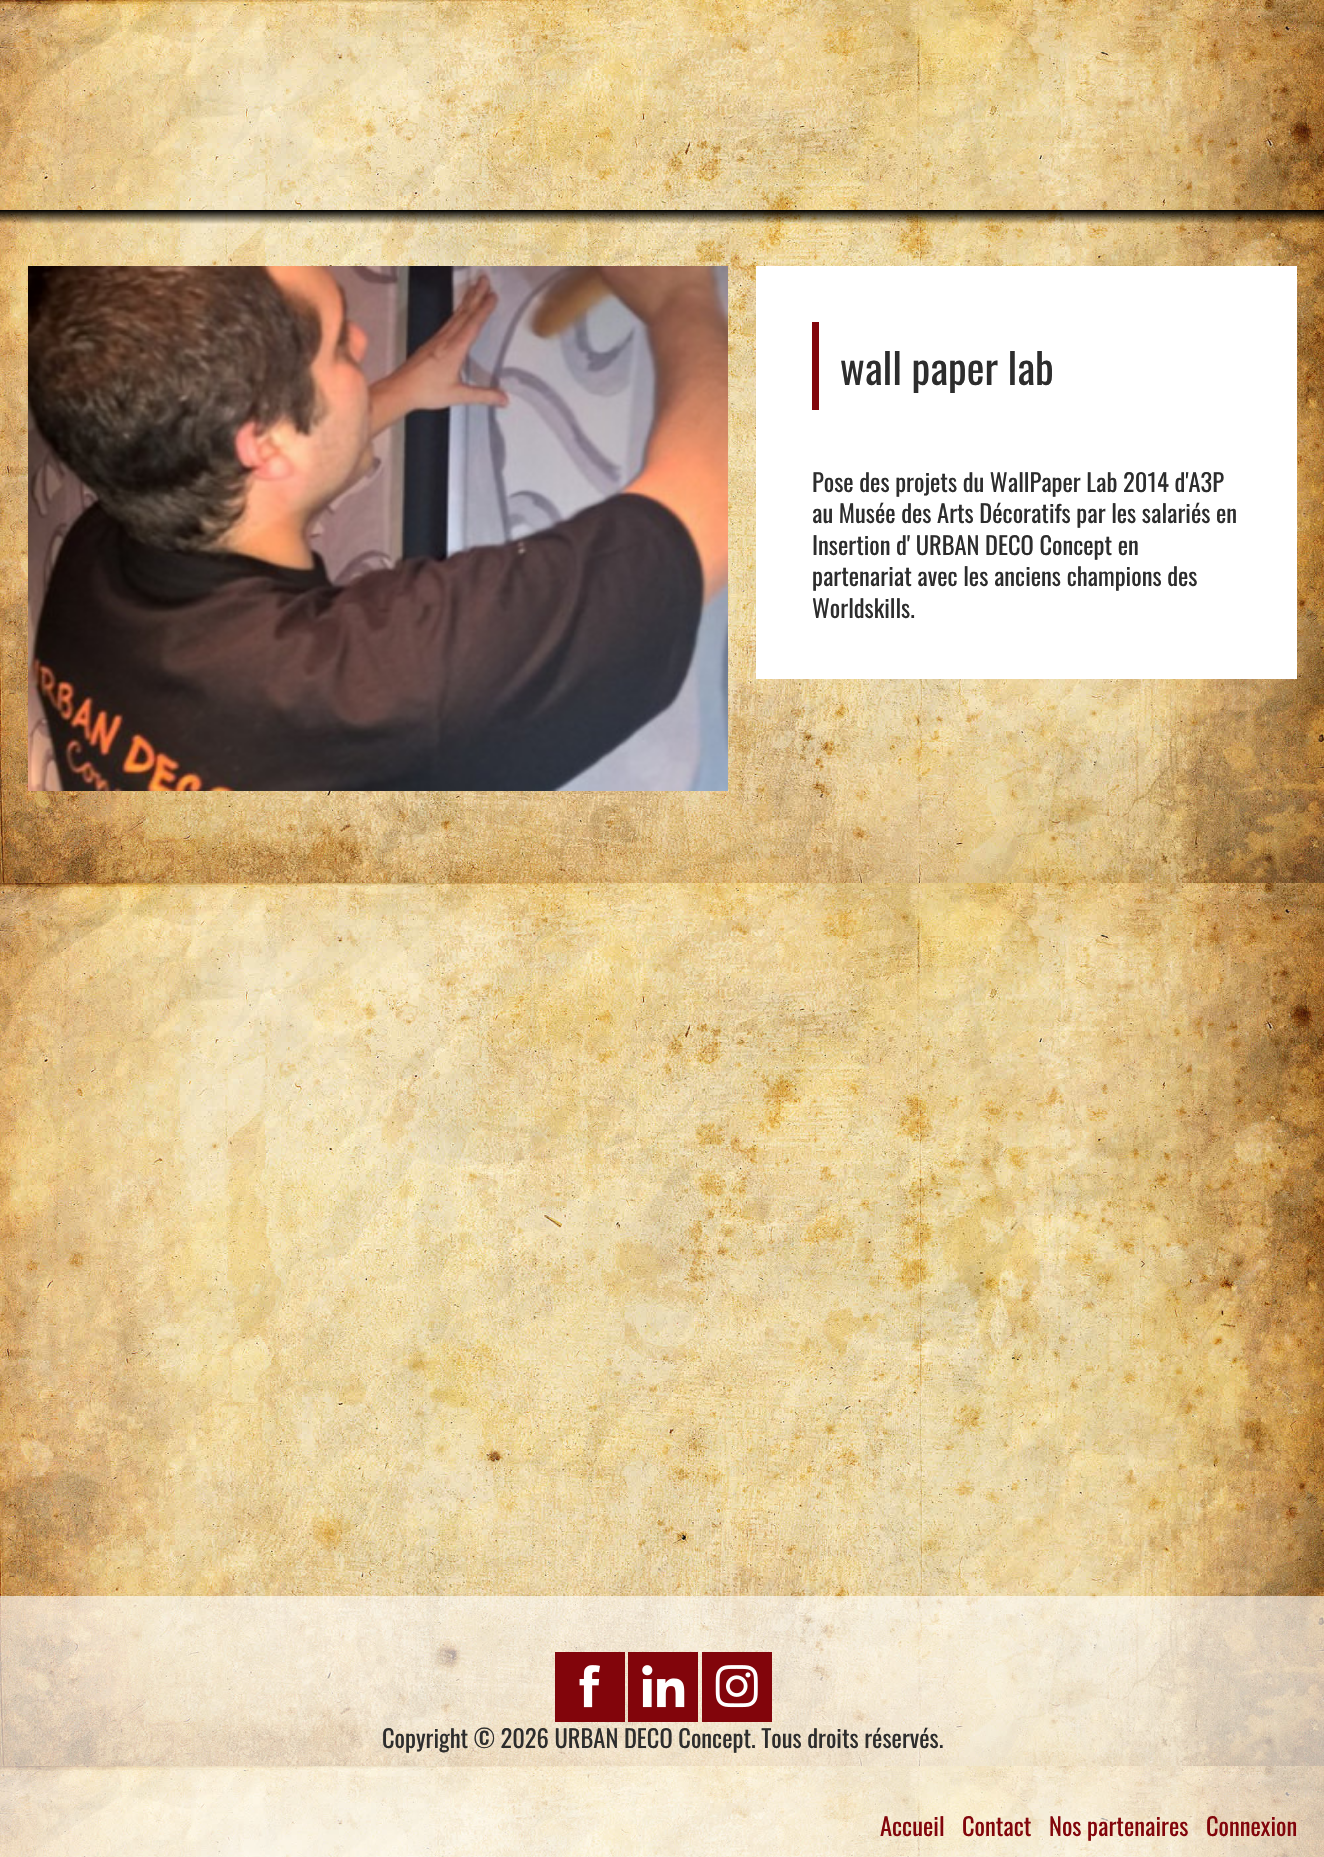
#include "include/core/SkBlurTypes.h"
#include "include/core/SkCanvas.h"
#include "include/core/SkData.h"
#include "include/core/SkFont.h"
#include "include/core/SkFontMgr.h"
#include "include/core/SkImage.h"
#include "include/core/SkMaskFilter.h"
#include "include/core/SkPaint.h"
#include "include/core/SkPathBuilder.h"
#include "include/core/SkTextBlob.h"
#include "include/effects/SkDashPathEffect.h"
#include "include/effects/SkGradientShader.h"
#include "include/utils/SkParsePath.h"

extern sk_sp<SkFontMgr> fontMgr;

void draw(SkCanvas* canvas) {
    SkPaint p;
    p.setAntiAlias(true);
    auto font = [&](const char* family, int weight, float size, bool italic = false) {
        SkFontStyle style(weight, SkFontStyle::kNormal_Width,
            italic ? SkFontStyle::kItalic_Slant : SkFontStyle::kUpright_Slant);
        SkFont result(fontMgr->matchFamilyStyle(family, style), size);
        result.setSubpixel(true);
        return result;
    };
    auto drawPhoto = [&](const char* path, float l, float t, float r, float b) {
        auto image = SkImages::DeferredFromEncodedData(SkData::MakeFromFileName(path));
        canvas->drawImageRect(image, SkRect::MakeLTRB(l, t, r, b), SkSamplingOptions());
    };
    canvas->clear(0xFFFFFFFF);
    drawPhoto("media/1.png", 0, 0, 1324, 1857);
    drawPhoto("media/2.png", 28, 266, 728, 791);
    p.setColor(0xFFFFFFFF);
    canvas->drawRect(SkRect::MakeLTRB(756, 266, 1297, 679), p);
    p.setColor(0xFF82050B);
    canvas->drawRect(SkRect::MakeLTRB(812, 322, 819, 410), p);
    auto font1 = font("Oswald", 400, 42);
    p.setColor(0xFF2D2D2D);
    canvas->drawString("wall paper lab", 840, 385, font1, p);
    auto font2 = font("Oswald", 400, 24.5f);
    {
        const struct { const char* s; float x, y; } items[] = {
            {"Pose des projets du WallPaper Lab 2014 d'A3P", 812, 492},
            {"au Musée des Arts Décoratifs par les salariés en", 812, 523},
            {"Insertion d' URBAN DECO Concept en", 812, 555},
            {"partenariat avec les anciens champions des", 812, 586},
            {"Worldskills.", 812, 618},
        };
        for (auto [s, x, y] : items) {
            canvas->drawString(s, x, y, font2, p);
        }
    }
    p.setColor(0x99FFFFFF);
    canvas->drawRect(SkRect::MakeLTRB(0, 1596, 1324, 1857), p);
    p.setColor(0xFF82050B);
    canvas->drawRect(SkRect::MakeLTRB(555, 1652, 625, 1722), p);
    drawPhoto("media/3.png", 579, 1665, 600, 1708);
    canvas->drawRect(SkRect::MakeLTRB(628, 1652, 698, 1722), p);
    drawPhoto("media/4.png", 642, 1665, 685, 1708);
    canvas->drawRect(SkRect::MakeLTRB(702, 1652, 772, 1722), p);
    drawPhoto("media/5.png", 715, 1665, 758, 1708);
    p.setColor(0xFF2D2D2D);
    canvas->drawString("Copyright © 2026 URBAN DECO Concept. Tous droits réservés.", 382, 1748, font2, p);
    p.setColor(0xFF82050B);
    {
        const struct { const char* s; float x, y; } items[] = {
            {"Accueil", 880, 1836},
            {"Contact", 962, 1836},
            {"Nos partenaires", 1049, 1836},
            {"Connexion", 1206, 1836},
        };
        for (auto [s, x, y] : items) {
            canvas->drawString(s, x, y, font2, p);
        }
    }
}
